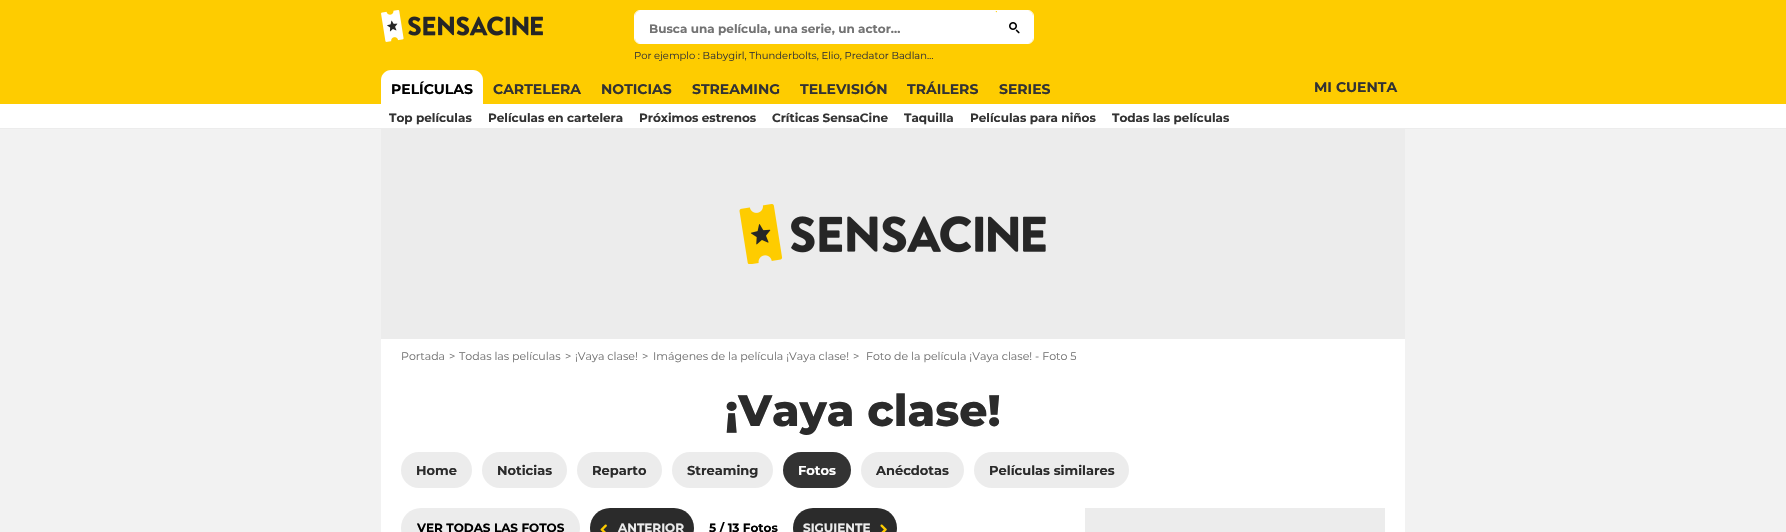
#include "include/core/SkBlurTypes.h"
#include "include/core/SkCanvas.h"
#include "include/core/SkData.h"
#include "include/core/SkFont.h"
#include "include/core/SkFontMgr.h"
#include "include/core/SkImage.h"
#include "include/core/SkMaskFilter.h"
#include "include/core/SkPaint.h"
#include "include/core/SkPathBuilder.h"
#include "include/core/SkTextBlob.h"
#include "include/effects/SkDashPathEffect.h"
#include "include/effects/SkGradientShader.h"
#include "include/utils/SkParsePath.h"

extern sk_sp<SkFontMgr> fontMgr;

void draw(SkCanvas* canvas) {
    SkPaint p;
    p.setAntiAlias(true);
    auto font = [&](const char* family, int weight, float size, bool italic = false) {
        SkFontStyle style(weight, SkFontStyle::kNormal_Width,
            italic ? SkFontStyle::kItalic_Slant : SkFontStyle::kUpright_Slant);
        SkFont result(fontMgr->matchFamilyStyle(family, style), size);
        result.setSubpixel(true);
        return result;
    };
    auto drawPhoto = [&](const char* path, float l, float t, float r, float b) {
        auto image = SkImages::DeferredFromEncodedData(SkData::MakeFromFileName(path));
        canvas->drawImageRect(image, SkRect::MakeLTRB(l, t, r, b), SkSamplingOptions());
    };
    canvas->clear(0xFFF2F2F2);
    p.setColor(0xFFFECC00);
    canvas->drawRect(SkRect::MakeLTRB(0, 0, 1786, 104), p);
    p.setColor(0xFFECECEC);
    canvas->drawRect(SkRect::MakeLTRB(0, 128, 1786, 129), p);
    drawPhoto("media/1.png", 381, 10, 543, 42);
    p.setStyle(SkPaint::kStroke_Style);
    p.setStrokeWidth(1);
    p.setColor(0xFFFFFFFF);
    canvas->drawRoundRect(SkRect::MakeLTRB(634.5f, 10.5f, 1033.5f, 43.5f), 5.5f, 5.5f, p);
    p.setStyle(SkPaint::kFill_Style);
    canvas->drawPath(SkPathBuilder().moveTo(640, 11).lineTo(995, 11).cubicTo(996, 11, 997, 12, 997, 13).lineTo(997, 43).lineTo(640, 43).cubicTo(637, 43, 635, 41, 635, 38).lineTo(635, 16).cubicTo(635, 13, 637, 11, 640, 11).close().detach(), p);
    auto font1 = font("Montserrat", 700, 12);
    p.setColor(0xFF737373);
    canvas->drawString("Busca una película, una serie, un actor...", 649, 33, font1, p);
    p.setColor(0xFFFFFFFF);
    canvas->drawPath(SkPathBuilder().moveTo(997, 11).lineTo(1028, 11).cubicTo(1031, 11, 1033, 13, 1033, 16).lineTo(1033, 38).cubicTo(1033, 41, 1031, 43, 1028, 43).lineTo(997, 43).close().detach(), p);
    drawPhoto("media/2.png", 1009, 22, 1020, 34);
    auto font2 = font("Montserrat", 400, 10);
    p.setColor(0xFF333333);
    canvas->drawString("Por ejemplo : Babygirl, Thunderbolts, Elio, Predator Badlan…", 634, 59, font2, p);
    p.setColor(0xFFFFFFFF);
    canvas->drawPath(SkPathBuilder().moveTo(391, 70).lineTo(473, 70).cubicTo(478.5f, 70, 483, 74.5f, 483, 80).lineTo(483, 108).lineTo(381, 108).lineTo(381, 80).cubicTo(381, 74.5f, 385.5f, 70, 391, 70).close().detach(), p);
    auto font3 = font("Montserrat", 700, 14);
    p.setColor(0xFF000000);
    canvas->drawString("PELÍCULAS", 391, 94, font3, p);
    p.setColor(0xFFFFFFFF);
    canvas->drawRect(SkRect::MakeLTRB(0, 104, 1786, 128), p);
    p.setColor(0xFF333333);
    {
        const struct { const char* s; float x, y; } items[] = {
            {"Top películas", 389, 122},
            {"Películas en cartelera", 488, 122},
            {"Próximos estrenos", 639, 122},
            {"Críticas SensaCine", 772, 122},
            {"Taquilla", 904, 122},
            {"Películas para niños", 970, 122},
            {"Todas las películas", 1112, 122},
        };
        for (auto [s, x, y] : items) {
            canvas->drawString(s, x, y, font1, p);
        }
    }
    {
        const struct { const char* s; float x, y; } items[] = {
            {"CARTELERA", 493, 94},
            {"NOTICIAS", 601, 94},
            {"STREAMING", 692, 94},
            {"TELEVISIÓN", 800, 94},
            {"TRÁILERS", 907, 94},
            {"SERIES", 999, 94},
            {"MI CUENTA", 1314, 92},
        };
        for (auto [s, x, y] : items) {
            canvas->drawString(s, x, y, font3, p);
        }
    }
    p.setColor(0xFFECECEC);
    canvas->drawRect(SkRect::MakeLTRB(381, 129, 1405, 339), p);
    drawPhoto("media/3.png", 739, 204, 1046, 264);
    p.setColor(0xFFFFFFFF);
    canvas->drawRect(SkRect::MakeLTRB(381, 339, 1405, 532), p);
    auto font4 = font("Montserrat", 400, 11);
    p.setColor(0xFF737373);
    {
        const struct { const char* s; float x, y; } items[] = {
            {"Portada", 401, 360},
            {">", 449, 360},
            {"Todas las películas", 459, 360},
            {">", 565, 360},
            {"¡Vaya clase!", 575, 360},
            {">", 642, 360},
            {"Imágenes de la película ¡Vaya clase!", 653, 360},
            {">", 853, 360},
            {"Foto de la película ¡Vaya clase! - Foto 5", 866, 360},
        };
        for (auto [s, x, y] : items) {
            canvas->drawString(s, x, y, font4, p);
        }
    }
    auto font5 = font("Montserrat", 800, 44);
    p.setColor(0xFF2B2B2B);
    canvas->drawString("¡Vaya clase!", 725, 426, font5, p);
    p.setColor(0xFFECECEC);
    canvas->drawRoundRect(SkRect::MakeLTRB(401, 452, 472, 488), 18, 18, p);
    auto font6 = font("Montserrat", 700, 13);
    p.setColor(0xFF2B2B2B);
    canvas->drawString("Home", 416, 475, font6, p);
    p.setColor(0xFFECECEC);
    canvas->drawRoundRect(SkRect::MakeLTRB(482, 452, 567, 488), 18, 18, p);
    p.setColor(0xFF2B2B2B);
    canvas->drawString("Noticias", 497, 475, font6, p);
    p.setColor(0xFFECECEC);
    canvas->drawRoundRect(SkRect::MakeLTRB(577, 452, 662, 488), 18, 18, p);
    p.setColor(0xFF2B2B2B);
    canvas->drawString("Reparto", 592, 475, font6, p);
    p.setColor(0xFFECECEC);
    canvas->drawRoundRect(SkRect::MakeLTRB(672, 452, 773, 488), 18, 18, p);
    p.setColor(0xFF2B2B2B);
    canvas->drawString("Streaming", 687, 475, font6, p);
    p.setColor(0xFF333333);
    canvas->drawRoundRect(SkRect::MakeLTRB(783, 452, 851, 488), 18, 18, p);
    p.setColor(0xFFFFFFFF);
    canvas->drawString("Fotos", 798, 475, font6, p);
    p.setColor(0xFFECECEC);
    canvas->drawRoundRect(SkRect::MakeLTRB(861, 452, 964, 488), 18, 18, p);
    p.setColor(0xFF2B2B2B);
    canvas->drawString("Anécdotas", 876, 475, font6, p);
    p.setColor(0xFFECECEC);
    canvas->drawRoundRect(SkRect::MakeLTRB(974, 452, 1129, 488), 18, 18, p);
    p.setColor(0xFF2B2B2B);
    canvas->drawString("Películas similares", 989, 475, font6, p);
    p.setColor(0xFFECECEC);
    canvas->drawRoundRect(SkRect::MakeLTRB(401, 508, 580, 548), 20, 20, p);
    p.setColor(0xFF000000);
    canvas->drawString("VER TODAS LAS FOTOS", 417, 532, font1, p);
    p.setColor(0xFF2B2B2B);
    canvas->drawRoundRect(SkRect::MakeLTRB(590, 508, 694, 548), 20, 20, p);
    drawPhoto("media/4.png", 600, 524, 607, 532);
    p.setColor(0xFFECECEC);
    canvas->drawString("ANTERIOR", 618, 532, font1, p);
    p.setColor(0xFF000000);
    canvas->drawString("5 / 13 Fotos", 709, 532, font1, p);
    p.setColor(0xFF2B2B2B);
    canvas->drawRoundRect(SkRect::MakeLTRB(793, 508, 897, 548), 20, 20, p);
    p.setColor(0xFFECECEC);
    canvas->drawString("SIGUIENTE", 803, 532, font1, p);
    drawPhoto("media/5.png", 880, 524, 887, 532);
    canvas->drawRect(SkRect::MakeLTRB(1085, 508, 1385, 532), p);
}
